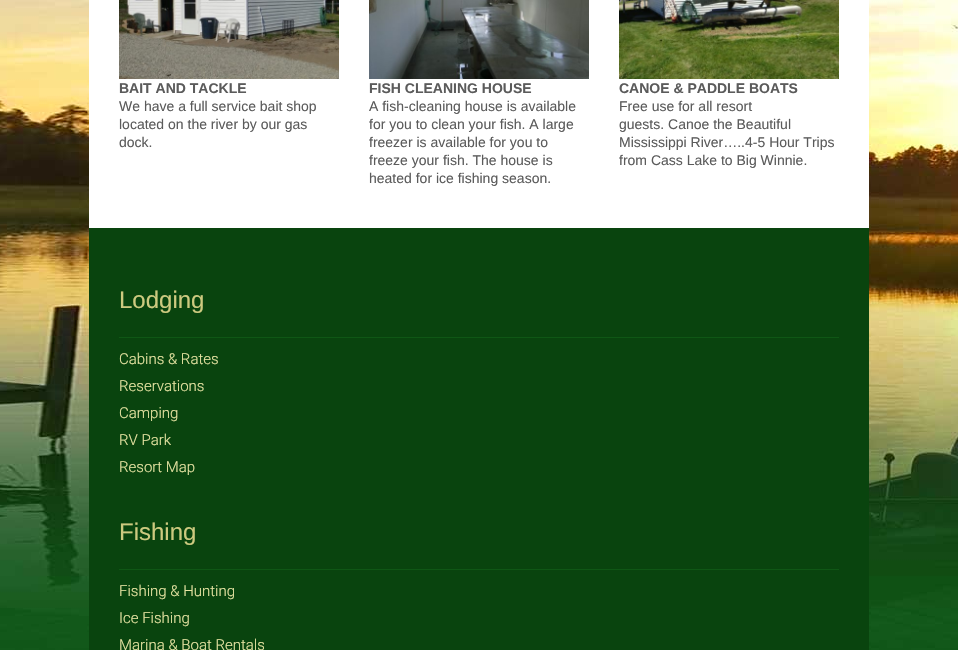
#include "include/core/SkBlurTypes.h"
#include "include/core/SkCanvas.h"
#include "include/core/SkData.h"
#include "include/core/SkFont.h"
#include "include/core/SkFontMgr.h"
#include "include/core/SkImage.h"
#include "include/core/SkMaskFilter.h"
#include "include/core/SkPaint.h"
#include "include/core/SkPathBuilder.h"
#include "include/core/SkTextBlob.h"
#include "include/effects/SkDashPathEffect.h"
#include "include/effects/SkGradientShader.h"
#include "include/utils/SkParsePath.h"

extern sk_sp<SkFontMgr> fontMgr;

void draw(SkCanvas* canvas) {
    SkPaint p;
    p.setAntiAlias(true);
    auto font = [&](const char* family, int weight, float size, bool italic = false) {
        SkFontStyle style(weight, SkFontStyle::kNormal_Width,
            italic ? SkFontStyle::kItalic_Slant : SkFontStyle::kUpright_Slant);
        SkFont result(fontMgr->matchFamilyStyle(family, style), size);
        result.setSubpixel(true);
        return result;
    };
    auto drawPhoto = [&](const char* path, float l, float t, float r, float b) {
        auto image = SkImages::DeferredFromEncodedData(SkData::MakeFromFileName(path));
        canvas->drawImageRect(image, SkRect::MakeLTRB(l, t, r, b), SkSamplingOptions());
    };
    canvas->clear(0xFFFFFFFF);
    drawPhoto("media/1.png", 0, 0, 958, 650);
    p.setColor(0xFFFFFFFF);
    canvas->drawRect(SkRect::MakeLTRB(89, 0, 869, 228), p);
    drawPhoto("media/2.png", 119, 0, 339, 79);
    auto font1 = font("Liberation Sans", 700, 14);
    p.setColor(0xFF5B5B5B);
    canvas->drawString("BAIT AND TACKLE", 119, 93, font1, p);
    auto font2 = font("Liberation Sans", 400, 14);
    {
        const struct { const char* s; float x, y; } items[] = {
            {"We have a full service bait shop", 119, 111},
            {"located on the river by our gas", 119, 129},
            {"dock.", 119, 147},
        };
        for (auto [s, x, y] : items) {
            canvas->drawString(s, x, y, font2, p);
        }
    }
    drawPhoto("media/3.png", 369, 0, 589, 79);
    canvas->drawString("FISH CLEANING HOUSE", 369, 93, font1, p);
    {
        const struct { const char* s; float x, y; } items[] = {
            {"A fish-cleaning house is available", 369, 111},
            {"for you to clean your fish. A large", 369, 129},
            {"freezer is available for you to", 369, 147},
            {"freeze your fish. The house is", 369, 165},
            {"heated for ice fishing season.", 369, 183},
        };
        for (auto [s, x, y] : items) {
            canvas->drawString(s, x, y, font2, p);
        }
    }
    drawPhoto("media/4.png", 619, 0, 839, 79);
    canvas->drawString("CANOE & PADDLE BOATS", 619, 93, font1, p);
    {
        const struct { const char* s; float x, y; } items[] = {
            {"Free use for all resort", 619, 111},
            {"guests. Canoe the Beautiful", 619, 129},
            {"Mississippi River…..4-5 Hour Trips", 619, 147},
            {"from Cass Lake to Big Winnie.", 619, 165},
        };
        for (auto [s, x, y] : items) {
            canvas->drawString(s, x, y, font2, p);
        }
    }
    p.setColor(0xFF09440E);
    canvas->drawRect(SkRect::MakeLTRB(89, 228, 869, 650), p);
    auto font3 = font("Liberation Sans", 400, 24);
    p.setColor(0xFFCDCA7F);
    canvas->drawString("Lodging", 119, 308, font3, p);
    p.setColor(0xFF0F5715);
    canvas->drawRect(SkRect::MakeLTRB(119, 337, 839, 338), p);
    auto font4 = font("Roboto", 300, 15);
    p.setColor(0xFFE8E5A3);
    {
        const struct { const char* s; float x, y; } items[] = {
            {"Cabins & Rates", 119, 364},
            {"Reservations", 119, 391},
            {"Camping", 119, 418},
            {"RV Park", 119, 445},
            {"Resort Map", 119, 472},
        };
        for (auto [s, x, y] : items) {
            canvas->drawString(s, x, y, font4, p);
        }
    }
    p.setColor(0xFFCDCA7F);
    canvas->drawString("Fishing", 119, 540, font3, p);
    p.setColor(0xFF0F5715);
    canvas->drawRect(SkRect::MakeLTRB(119, 569, 839, 570), p);
    p.setColor(0xFFE8E5A3);
    {
        const struct { const char* s; float x, y; } items[] = {
            {"Fishing & Hunting", 119, 596},
            {"Ice Fishing", 119, 623},
            {"Marina & Boat Rentals", 119, 650},
        };
        for (auto [s, x, y] : items) {
            canvas->drawString(s, x, y, font4, p);
        }
    }
}
